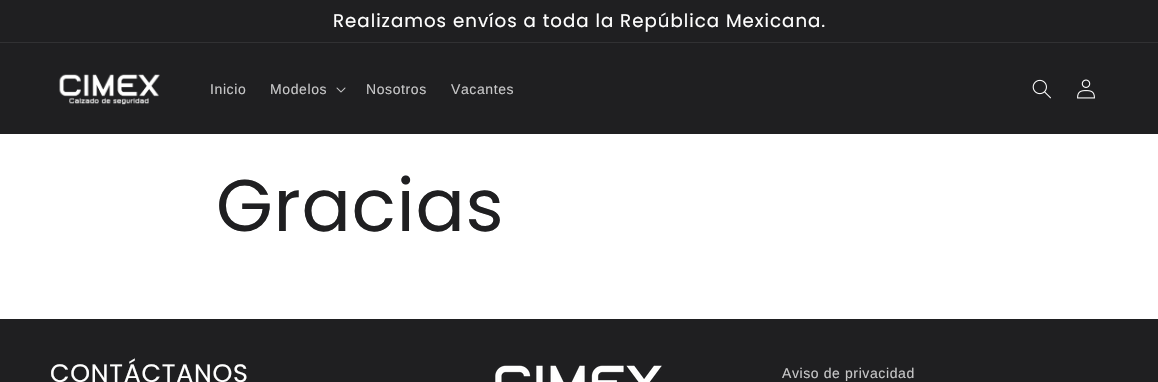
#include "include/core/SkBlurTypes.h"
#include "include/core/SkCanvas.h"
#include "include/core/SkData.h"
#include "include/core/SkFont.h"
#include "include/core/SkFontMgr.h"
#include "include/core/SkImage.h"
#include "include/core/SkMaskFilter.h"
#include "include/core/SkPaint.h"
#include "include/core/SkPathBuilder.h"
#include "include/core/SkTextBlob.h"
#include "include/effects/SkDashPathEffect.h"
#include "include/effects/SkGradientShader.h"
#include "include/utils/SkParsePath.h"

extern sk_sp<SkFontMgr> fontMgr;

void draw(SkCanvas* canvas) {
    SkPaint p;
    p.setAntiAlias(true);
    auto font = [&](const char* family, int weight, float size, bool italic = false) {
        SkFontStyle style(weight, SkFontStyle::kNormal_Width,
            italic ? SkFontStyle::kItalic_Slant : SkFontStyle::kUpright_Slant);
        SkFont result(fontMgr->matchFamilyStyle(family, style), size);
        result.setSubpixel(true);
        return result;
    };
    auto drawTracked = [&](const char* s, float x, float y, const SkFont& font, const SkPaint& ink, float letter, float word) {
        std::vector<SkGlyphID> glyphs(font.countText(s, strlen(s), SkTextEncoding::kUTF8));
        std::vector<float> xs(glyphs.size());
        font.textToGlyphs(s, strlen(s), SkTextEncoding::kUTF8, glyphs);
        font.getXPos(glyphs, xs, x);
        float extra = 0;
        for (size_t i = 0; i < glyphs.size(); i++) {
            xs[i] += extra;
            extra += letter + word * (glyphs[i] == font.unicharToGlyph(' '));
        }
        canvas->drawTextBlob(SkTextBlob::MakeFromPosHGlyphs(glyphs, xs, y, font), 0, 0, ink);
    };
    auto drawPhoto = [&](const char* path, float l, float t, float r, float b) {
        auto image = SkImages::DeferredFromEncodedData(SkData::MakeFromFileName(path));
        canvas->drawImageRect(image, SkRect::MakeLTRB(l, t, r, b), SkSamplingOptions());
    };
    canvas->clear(0xFFFFFFFF);
    p.setColor(0xFF1F1F21);
    canvas->drawRect(SkRect::MakeLTRB(0, 0, 1158, 42), p);
    p.setColor(0xFF313133);
    canvas->drawRect(SkRect::MakeLTRB(0, 42, 1158, 43), p);
    auto font1 = font("Poppins", 400, 18.2f);
    p.setColor(0xFFFFFFFF);
    drawTracked("Realizamos envíos a toda la República Mexicana.", 333, 27, font1, p, 1, 0);
    p.setColor(0xFF1F1F21);
    canvas->drawRect(SkRect::MakeLTRB(0, 43, 1158, 134), p);
    drawPhoto("media/1.png", 59, 74, 160, 105);
    auto font2 = font("Liberation Sans", 400, 14);
    p.setColor(0xFFC7C7C8);
    drawTracked("Inicio", 210, 94, font2, p, 0.6f, 0);
    drawTracked("Modelos", 270, 94, font2, p, 0.6f, 0);
    drawPhoto("media/2.png", 336, 87, 346, 93);
    drawTracked("Nosotros", 366, 94, font2, p, 0.6f, 0);
    drawTracked("Vacantes", 451, 94, font2, p, 0.6f, 0);
    drawPhoto("media/3.png", 1032, 79, 1051, 99);
    drawPhoto("media/4.png", 1077, 79, 1095, 99);
    auto font3 = font("Poppins", 400, 73);
    p.setColor(0xFF1F1F21);
    drawTracked("Gracias", 216, 231, font3, p, 0.75f, 0);
    canvas->drawRect(SkRect::MakeLTRB(0, 319, 1158, 382), p);
    auto font4 = font("Poppins", 400, 25.25f);
    p.setColor(0xFFFFFFFF);
    drawTracked("CONTÁCTANOS", 50, 382, font4, p, 0.75f, 0);
    drawPhoto("media/5.png", 495, 365, 662, 382);
    p.setColor(0xFFC7C7C8);
    drawTracked("Aviso de privacidad", 782, 378, font2, p, 0.6f, 0);
}
